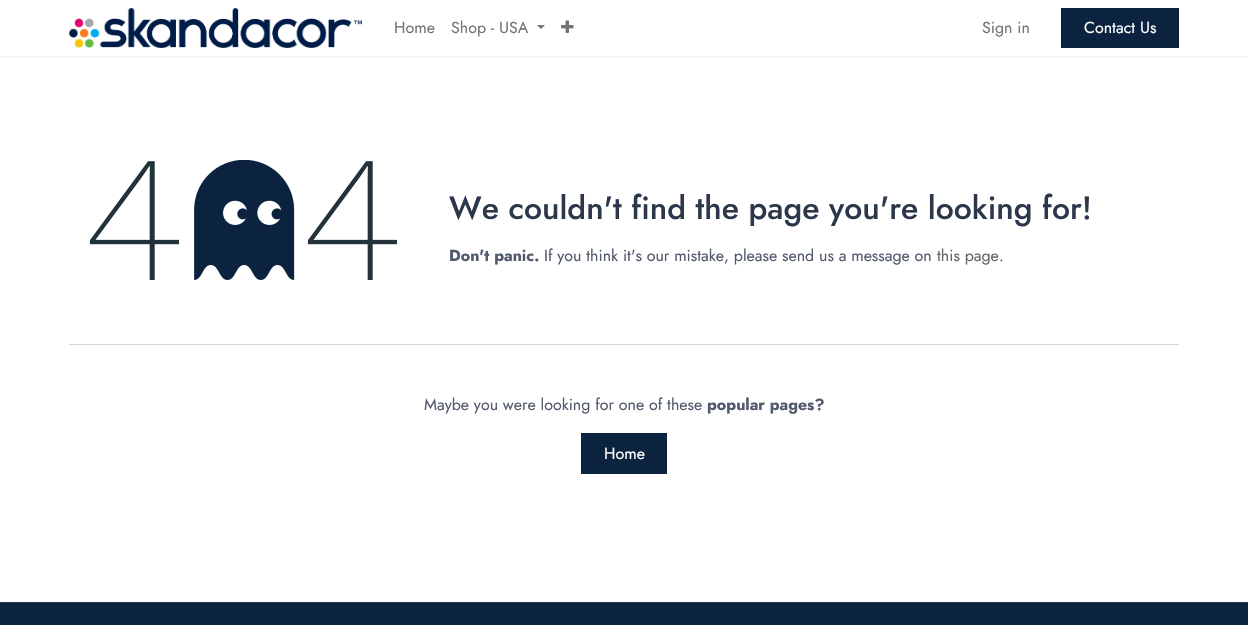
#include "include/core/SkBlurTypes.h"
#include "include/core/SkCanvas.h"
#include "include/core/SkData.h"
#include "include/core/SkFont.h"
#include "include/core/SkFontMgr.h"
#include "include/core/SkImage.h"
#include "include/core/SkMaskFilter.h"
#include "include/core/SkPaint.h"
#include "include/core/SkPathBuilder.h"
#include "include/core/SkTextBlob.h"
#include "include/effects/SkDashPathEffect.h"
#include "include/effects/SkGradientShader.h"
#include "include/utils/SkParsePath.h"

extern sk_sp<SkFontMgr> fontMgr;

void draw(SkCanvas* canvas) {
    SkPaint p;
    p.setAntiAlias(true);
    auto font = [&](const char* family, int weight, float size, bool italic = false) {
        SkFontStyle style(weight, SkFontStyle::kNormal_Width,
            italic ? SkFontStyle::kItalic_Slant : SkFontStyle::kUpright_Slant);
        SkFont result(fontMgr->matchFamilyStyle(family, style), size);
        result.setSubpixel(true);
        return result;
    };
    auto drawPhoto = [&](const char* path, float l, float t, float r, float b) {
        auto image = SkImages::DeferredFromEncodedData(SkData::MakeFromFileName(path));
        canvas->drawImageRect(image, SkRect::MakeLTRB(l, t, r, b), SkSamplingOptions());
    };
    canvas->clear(0xFFFFFFFF);
    canvas->save();
    canvas->clipRect(SkRect::MakeLTRB(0, 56, 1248, 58));
    p.setColor(0x12000000);
    p.setMaskFilter(SkMaskFilter::MakeBlur(kNormal_SkBlurStyle, 2));
    canvas->drawRect(SkRect::MakeLTRB(0, 1, 1248, 57), p);
    p.setMaskFilter(nullptr);
    canvas->restore();
    drawPhoto("media/1.png", 69, 8, 362, 48);
    auto font1 = font("Jost", 400, 16);
    p.setColor(0xFF737373);
    canvas->drawString("Home", 394, 33, font1, p);
    canvas->drawString("Shop - USA", 451, 33, font1, p);
    canvas->drawPath(SkPathBuilder().moveTo(537, 25).lineTo(545, 25).lineTo(541, 29).close().detach(), p);
    drawPhoto("media/2.png", 561, 20, 574, 33);
    canvas->drawString("Sign in", 982, 33, font1, p);
    p.setColor(0xFF0C2340);
    canvas->drawRect(SkRect::MakeLTRB(1061, 8, 1179, 48), p);
    p.setColor(0xFFFFFFFF);
    canvas->drawString("Contact Us", 1084, 33, font1, p);
    drawPhoto("media/3.png", 89, 160, 397, 280);
    auto font2 = font("Jost", 500, 32);
    p.setColor(0xFF2D374B);
    canvas->drawString("We couldn't find the page you're looking for!", 449, 219, font2, p);
    auto font3 = font("Jost", 700, 16);
    p.setColor(0xFF51596C);
    canvas->drawString("Don't panic.", 449, 261, font3, p);
    canvas->drawString("If you think it's our mistake, please send us a message on", 544, 261, font1, p);
    p.setColor(0xFF626566);
    canvas->drawString("this page", 937, 261, font1, p);
    p.setColor(0xFF51596C);
    canvas->drawString(".", 999, 261, font1, p);
    p.setColor(0xFFCED4DA);
    canvas->drawRect(SkRect::MakeLTRB(69, 344, 1179, 345), p);
    p.setColor(0xFF51596C);
    canvas->drawString("Maybe you were looking for one of these", 424, 410, font1, p);
    canvas->drawString("popular pages?", 707, 410, font3, p);
    p.setColor(0xFF0C2340);
    canvas->drawRect(SkRect::MakeLTRB(581, 433, 667, 474), p);
    p.setColor(0xFFFFFFFF);
    canvas->drawString("Home", 604, 459, font1, p);
    p.setColor(0xFF0C2340);
    canvas->drawRect(SkRect::MakeLTRB(0, 603, 1248, 625), p);
    p.setColor(0xFF243953);
    canvas->drawRect(SkRect::MakeLTRB(0, 602, 1248, 603), p);
}
